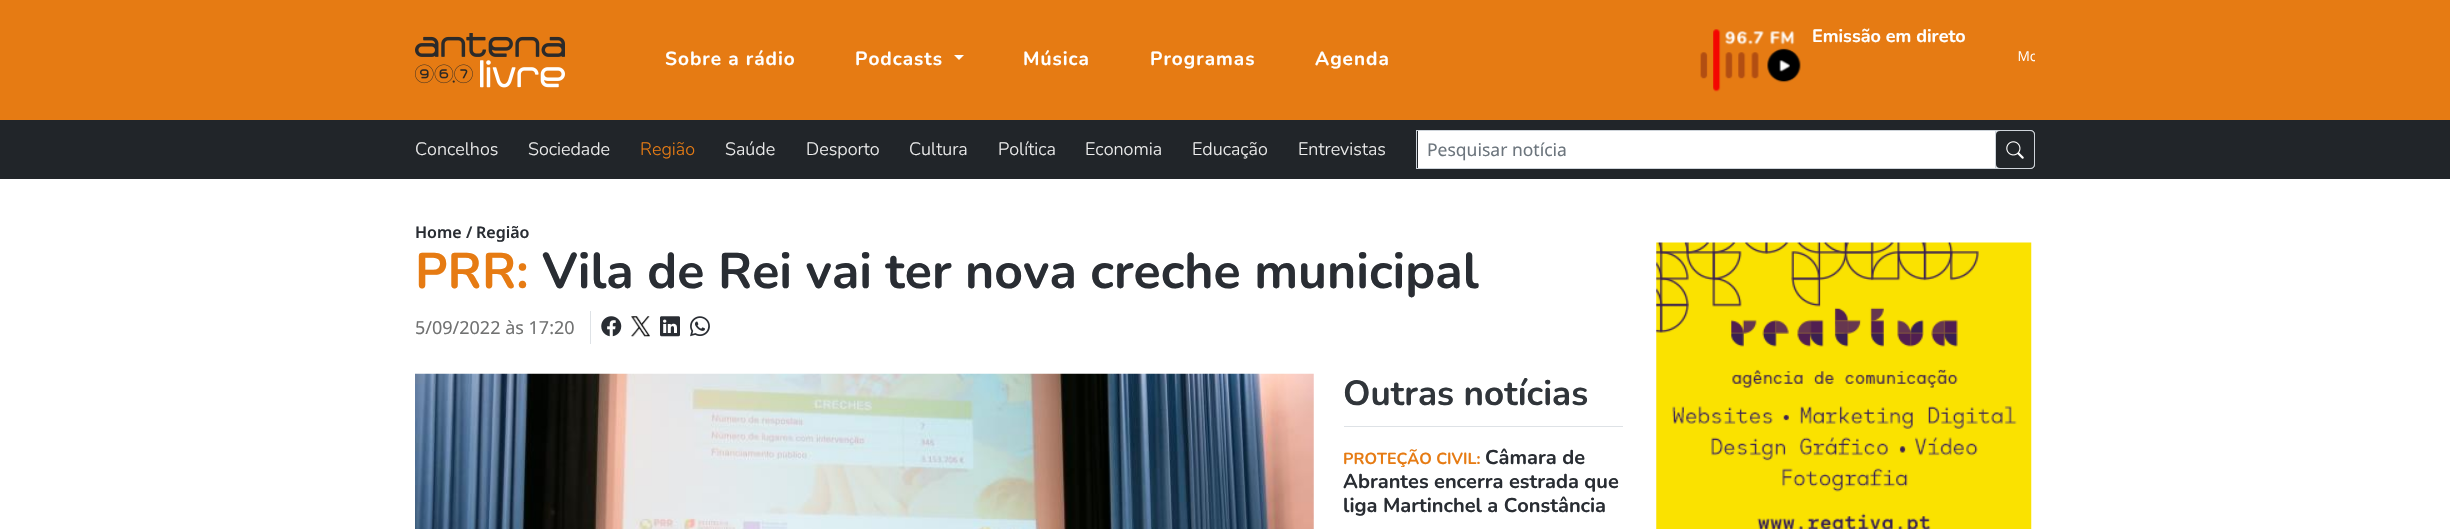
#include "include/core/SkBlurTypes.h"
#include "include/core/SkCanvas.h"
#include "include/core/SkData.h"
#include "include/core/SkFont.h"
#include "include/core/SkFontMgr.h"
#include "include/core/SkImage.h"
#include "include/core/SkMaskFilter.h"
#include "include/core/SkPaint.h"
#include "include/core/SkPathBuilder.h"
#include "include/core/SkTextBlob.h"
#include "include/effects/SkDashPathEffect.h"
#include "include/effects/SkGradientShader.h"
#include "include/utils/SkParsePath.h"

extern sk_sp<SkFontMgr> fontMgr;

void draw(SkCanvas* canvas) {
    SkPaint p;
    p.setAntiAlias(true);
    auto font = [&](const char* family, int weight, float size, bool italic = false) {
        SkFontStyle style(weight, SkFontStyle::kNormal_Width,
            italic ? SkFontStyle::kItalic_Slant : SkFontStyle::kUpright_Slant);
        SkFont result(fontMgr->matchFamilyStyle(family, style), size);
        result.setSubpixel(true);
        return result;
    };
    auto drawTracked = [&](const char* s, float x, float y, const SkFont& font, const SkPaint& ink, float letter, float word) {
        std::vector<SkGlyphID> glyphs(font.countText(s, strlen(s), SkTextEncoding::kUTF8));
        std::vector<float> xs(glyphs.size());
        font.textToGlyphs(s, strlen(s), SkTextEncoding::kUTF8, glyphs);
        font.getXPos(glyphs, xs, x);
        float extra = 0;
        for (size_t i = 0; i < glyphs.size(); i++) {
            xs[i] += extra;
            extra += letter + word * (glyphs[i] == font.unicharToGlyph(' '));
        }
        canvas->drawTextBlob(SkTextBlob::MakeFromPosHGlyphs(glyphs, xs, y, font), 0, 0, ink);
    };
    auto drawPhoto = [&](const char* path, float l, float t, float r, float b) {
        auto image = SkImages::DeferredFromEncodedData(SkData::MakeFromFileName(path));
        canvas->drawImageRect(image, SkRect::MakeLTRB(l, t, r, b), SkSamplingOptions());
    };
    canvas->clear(0xFFFFFFFF);
    p.setColor(0xFFE67B13);
    canvas->drawRect(SkRect::MakeLTRB(0, 0, 2450, 120), p);
    drawPhoto("media/1.png", 415, 33, 565, 88);
    drawPhoto("media/2.png", 1700, 29, 1801, 92);
    auto font1 = font("Nunito", 700, 18);
    p.setColor(0xFFFFFFFF);
    canvas->drawString("Emissão em direto", 1812, 42, font1, p);
    drawPhoto("media/3.png", 2018, 51, 2035, 62);
    auto font2 = font("Nunito", 700, 19);
    drawTracked("Sobre a rádio", 665, 65, font2, p, 1, 0);
    drawTracked("Podcasts", 855, 65, font2, p, 1, 0);
    canvas->drawPath(SkPathBuilder().moveTo(954, 55).lineTo(964, 55).lineTo(959, 60).close().detach(), p);
    {
        const struct { const char* s; float x, y; } items[] = {
            {"Música", 1023, 65},
            {"Programas", 1150, 65},
            {"Agenda", 1315, 65},
        };
        for (auto [s, x, y] : items) {
            drawTracked(s, x, y, font2, p, 1, 0);
        }
    }
    p.setColor(0xFF212529);
    canvas->drawRect(SkRect::MakeLTRB(0, 120, 2450, 179), p);
    auto font3 = font("Nunito", 300, 18);
    p.setColor(0xFFEEEEEE);
    canvas->drawString("Concelhos", 415, 155, font3, p);
    canvas->drawString("Sociedade", 528, 155, font3, p);
    p.setColor(0xFFE67B13);
    canvas->drawString("Região", 640, 155, font3, p);
    p.setColor(0xFFEEEEEE);
    {
        const struct { const char* s; float x, y; } items[] = {
            {"Saúde", 725, 155},
            {"Desporto", 806, 155},
            {"Cultura", 909, 155},
            {"Política", 998, 155},
            {"Economia", 1085, 155},
            {"Educação", 1192, 155},
            {"Entrevistas", 1298, 155},
        };
        for (auto [s, x, y] : items) {
            canvas->drawString(s, x, y, font3, p);
        }
    }
    p.setColor(0xFFFFFFFF);
    canvas->drawRect(SkRect::MakeLTRB(1418, 131, 1995, 168), p);
    p.setColor(0xFFE9ECEF);
    canvas->drawPath(SkPathBuilder().moveTo(1995.5f, 130.5f).lineTo(2031, 130.5f).cubicTo(2033, 130.5f, 2034.5f, 132, 2034.5f, 134).lineTo(2034.5f, 165).cubicTo(2034.5f, 167, 2033, 168.5f, 2031, 168.5f).lineTo(1995.5f, 168.5f).close().detach(), p);
    p.setStyle(SkPaint::kStroke_Style);
    p.setStrokeWidth(1);
    p.setColor(0xFFCED4DA);
    canvas->drawPath(SkPathBuilder().moveTo(1995.5f, 130.5f).lineTo(2031, 130.5f).cubicTo(2033, 130.5f, 2034.5f, 132, 2034.5f, 134).lineTo(2034.5f, 165).cubicTo(2034.5f, 167, 2033, 168.5f, 2031, 168.5f).lineTo(1995.5f, 168.5f).close().detach(), p);
    canvas->drawRect(SkRect::MakeLTRB(1416.5f, 130.5f, 1995.5f, 168.5f), p);
    auto font4 = font("Noto Sans", 400, 17.5f);
    p.setStyle(SkPaint::kFill_Style);
    p.setColor(0xFF6C757D);
    canvas->drawString("Pesquisar notícia", 1427, 156, font4, p);
    p.setColor(0xFF212529);
    canvas->drawRoundRect(SkRect::MakeLTRB(1996, 131, 2034, 168), 4, 4, p);
    drawPhoto("media/4.png", 2006, 141, 2024, 159);
    auto font5 = font("Noto Sans", 600, 16);
    p.setColor(0xFF292D33);
    canvas->drawString("Home", 415, 238, font5, p);
    p.setColor(0xFF30353A);
    canvas->drawString("/", 466, 238, font5, p);
    p.setColor(0xFF292D33);
    canvas->drawString("Região", 476, 238, font5, p);
    auto font6 = font("Nunito", 700, 50);
    p.setColor(0xFFE67B13);
    canvas->drawString("PRR:", 415, 288, font6, p);
    p.setColor(0xFF292D33);
    canvas->drawString("Vila de Rei vai ter nova creche municipal", 542, 288, font6, p);
    auto font7 = font("Noto Sans", 400, 18);
    p.setColor(0xFF717272);
    canvas->drawString("5/09/2022 às 17:20", 415, 334, font7, p);
    p.setColor(0xFFDEE2E6);
    canvas->drawRect(SkRect::MakeLTRB(590, 311, 591, 344), p);
    drawPhoto("media/5.png", 601, 316, 622, 337);
    drawPhoto("media/6.png", 631, 316, 650, 337);
    drawPhoto("media/7.png", 660, 316, 680, 337);
    drawPhoto("media/8.png", 690, 316, 710, 337);
    drawPhoto("media/9.png", 415, 373, 1314, 529);
    canvas->drawRect(SkRect::MakeLTRB(1344, 426, 1623, 427), p);
    auto font8 = font("Nunito", 700, 35);
    p.setColor(0xFF30353A);
    canvas->drawString("Outras notícias", 1343, 405, font8, p);
    auto font9 = font("Nunito", 700, 16);
    p.setColor(0xFFE67B13);
    canvas->drawString("PROTEÇÃO CIVIL:", 1343, 464, font9, p);
    auto font10 = font("Nunito", 700, 20);
    p.setColor(0xFF292D33);
    {
        const struct { const char* s; float x, y; } items[] = {
            {"Câmara de", 1485, 464},
            {"Abrantes encerra estrada que", 1343, 488},
            {"liga Martinchel a Constância", 1343, 512},
        };
        for (auto [s, x, y] : items) {
            canvas->drawString(s, x, y, font10, p);
        }
    }
    drawPhoto("media/10.png", 1656, 242, 2032, 529);
}
